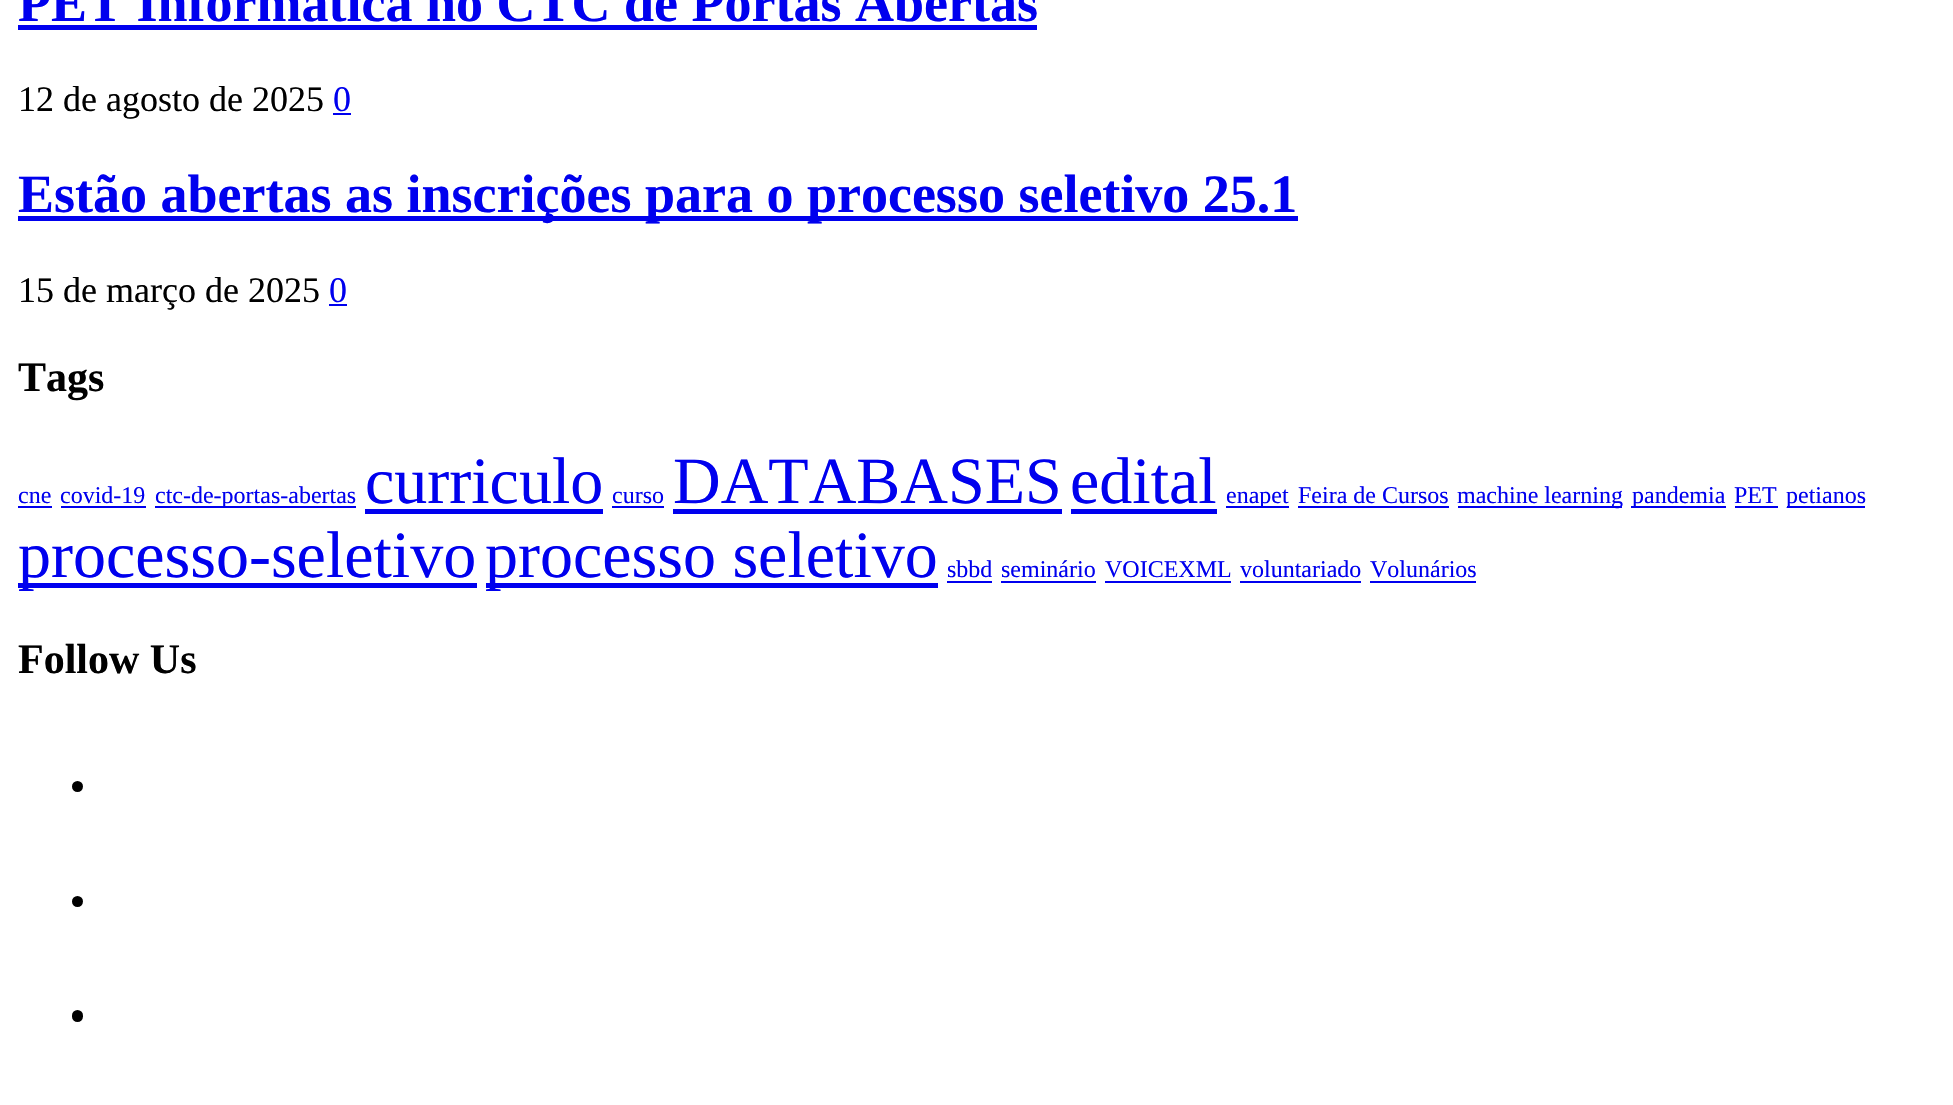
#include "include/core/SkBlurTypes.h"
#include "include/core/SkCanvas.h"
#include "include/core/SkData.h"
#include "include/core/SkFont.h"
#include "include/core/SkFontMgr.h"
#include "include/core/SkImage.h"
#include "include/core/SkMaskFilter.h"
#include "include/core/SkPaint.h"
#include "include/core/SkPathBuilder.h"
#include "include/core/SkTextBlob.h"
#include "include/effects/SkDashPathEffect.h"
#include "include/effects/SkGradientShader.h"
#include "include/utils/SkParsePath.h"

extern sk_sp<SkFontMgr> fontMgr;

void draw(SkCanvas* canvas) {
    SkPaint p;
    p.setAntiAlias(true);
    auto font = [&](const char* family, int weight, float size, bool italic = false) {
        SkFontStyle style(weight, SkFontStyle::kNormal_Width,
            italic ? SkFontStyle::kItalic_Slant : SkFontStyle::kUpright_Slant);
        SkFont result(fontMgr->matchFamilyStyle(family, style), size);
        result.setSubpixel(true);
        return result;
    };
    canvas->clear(0xFFFFFFFF);
    auto font1 = font("Liberation Serif", 700, 54);
    p.setColor(0xFF0000EE);
    canvas->drawString("PET Informática no CTC de Portas Abertas", 18, 21, font1, p);
    canvas->drawRect(SkRect::MakeLTRB(18, 25, 1037, 30), p);
    auto font2 = font("Liberation Serif", 400, 36);
    p.setColor(0xFF000000);
    canvas->drawString("12 de agosto de 2025", 18, 111, font2, p);
    p.setColor(0xFF0000EE);
    canvas->drawString("0", 333, 111, font2, p);
    canvas->drawRect(SkRect::MakeLTRB(333, 113, 351, 115), p);
    canvas->drawRect(SkRect::MakeLTRB(18, 216, 1298, 221), p);
    canvas->drawString("Estão abertas as inscrições para o processo seletivo 25.1", 18, 212, font1, p);
    p.setColor(0xFF000000);
    canvas->drawString("15 de março de 2025", 18, 302, font2, p);
    p.setColor(0xFF0000EE);
    canvas->drawString("0", 329, 302, font2, p);
    canvas->drawRect(SkRect::MakeLTRB(329, 304, 347, 306), p);
    auto font3 = font("Liberation Serif", 700, 42);
    p.setColor(0xFF000000);
    canvas->drawString("Tags", 18, 391, font3, p);
    auto font4 = font("Liberation Serif", 400, 24);
    p.setColor(0xFF0000EE);
    canvas->drawString("cne", 18, 503, font4, p);
    canvas->drawRect(SkRect::MakeLTRB(18, 506, 52, 508), p);
    canvas->drawString("covid-19", 60, 503, font4, p);
    canvas->drawRect(SkRect::MakeLTRB(61, 506, 146, 508), p);
    canvas->drawRect(SkRect::MakeLTRB(155, 506, 356, 508), p);
    canvas->drawString("ctc-de-portas-abertas", 155, 503, font4, p);
    auto font5 = font("Liberation Serif", 400, 66);
    canvas->drawString("curriculo", 365, 503, font5, p);
    canvas->drawRect(SkRect::MakeLTRB(365, 509, 603, 514), p);
    canvas->drawString("curso", 612, 503, font4, p);
    canvas->drawRect(SkRect::MakeLTRB(612, 506, 664, 508), p);
    canvas->drawString("DATABASES", 673, 503, font5, p);
    canvas->drawRect(SkRect::MakeLTRB(673, 509, 1062, 514), p);
    canvas->drawString("edital", 1070, 503, font5, p);
    canvas->drawRect(SkRect::MakeLTRB(1071, 509, 1217, 514), p);
    canvas->drawRect(SkRect::MakeLTRB(1226, 506, 1289, 508), p);
    canvas->drawString("enapet", 1226, 503, font4, p);
    canvas->drawString("Feira de Cursos", 1298, 503, font4, p);
    canvas->drawRect(SkRect::MakeLTRB(1298, 506, 1449, 508), p);
    canvas->drawRect(SkRect::MakeLTRB(1458, 506, 1622, 508), p);
    canvas->drawString("machine learning", 1457, 503, font4, p);
    canvas->drawRect(SkRect::MakeLTRB(1631, 506, 1726, 508), p);
    canvas->drawString("pandemia", 1632, 503, font4, p);
    canvas->drawString("PET", 1734, 503, font4, p);
    canvas->drawRect(SkRect::MakeLTRB(1735, 506, 1778, 508), p);
    canvas->drawRect(SkRect::MakeLTRB(1787, 506, 1865, 508), p);
    canvas->drawString("petianos", 1786, 503, font4, p);
    canvas->drawRect(SkRect::MakeLTRB(18, 583, 477, 588), p);
    canvas->drawString("processo-seletivo", 18, 577, font5, p);
    canvas->drawRect(SkRect::MakeLTRB(486, 583, 938, 588), p);
    canvas->drawString("processo seletivo", 485, 577, font5, p);
    canvas->drawString("sbbd", 947, 577, font4, p);
    canvas->drawRect(SkRect::MakeLTRB(947, 581, 992, 583), p);
    canvas->drawString("seminário", 1001, 577, font4, p);
    canvas->drawRect(SkRect::MakeLTRB(1001, 581, 1096, 583), p);
    canvas->drawString("VOICEXML", 1105, 577, font4, p);
    canvas->drawRect(SkRect::MakeLTRB(1105, 581, 1231, 583), p);
    canvas->drawString("voluntariado", 1240, 577, font4, p);
    canvas->drawRect(SkRect::MakeLTRB(1240, 581, 1361, 583), p);
    canvas->drawString("Volunários", 1370, 577, font4, p);
    canvas->drawRect(SkRect::MakeLTRB(1370, 581, 1476, 583), p);
    p.setColor(0xFF000000);
    canvas->drawString("Follow Us", 18, 673, font3, p);
    canvas->drawCircle(77.5f, 786.5f, 5.5f, p);
    canvas->drawCircle(77.5f, 901.5f, 5.5f, p);
    canvas->drawRoundRect(SkRect::MakeLTRB(72, 1010, 83, 1022), 5.5f, 5.5f, p);
}
